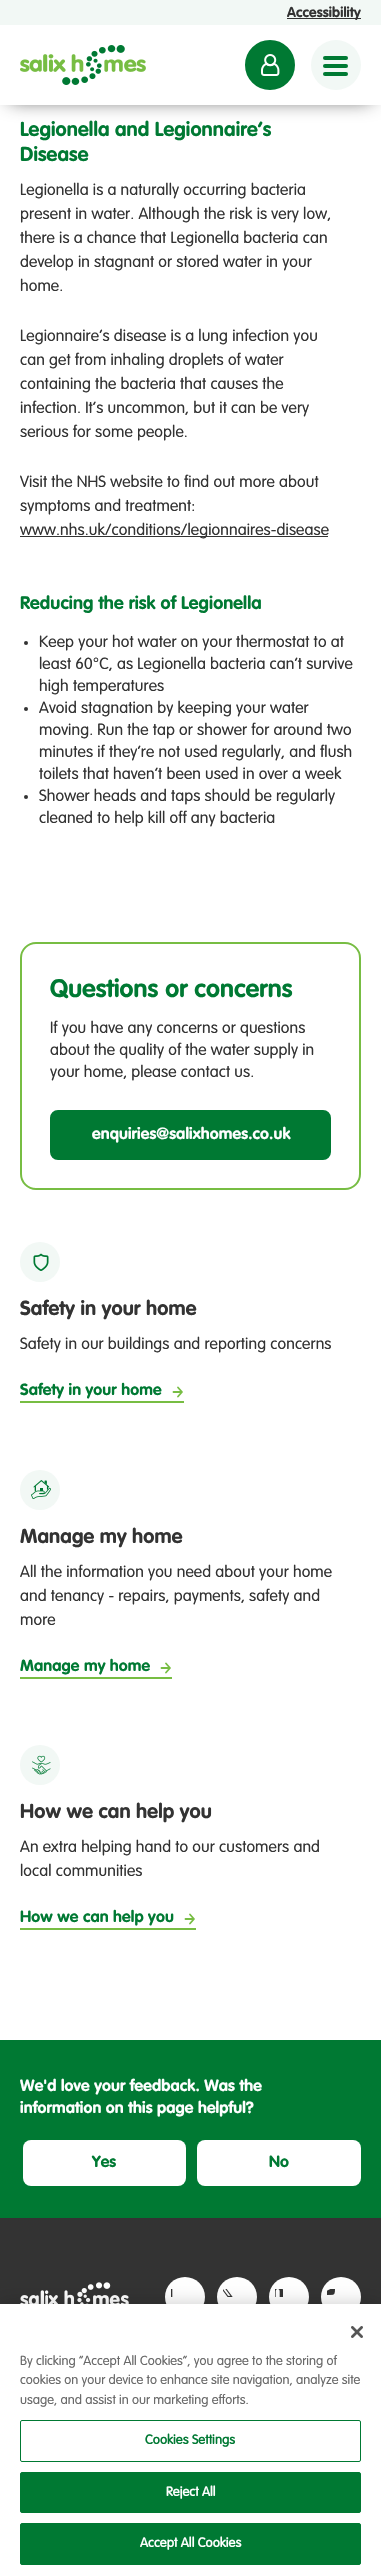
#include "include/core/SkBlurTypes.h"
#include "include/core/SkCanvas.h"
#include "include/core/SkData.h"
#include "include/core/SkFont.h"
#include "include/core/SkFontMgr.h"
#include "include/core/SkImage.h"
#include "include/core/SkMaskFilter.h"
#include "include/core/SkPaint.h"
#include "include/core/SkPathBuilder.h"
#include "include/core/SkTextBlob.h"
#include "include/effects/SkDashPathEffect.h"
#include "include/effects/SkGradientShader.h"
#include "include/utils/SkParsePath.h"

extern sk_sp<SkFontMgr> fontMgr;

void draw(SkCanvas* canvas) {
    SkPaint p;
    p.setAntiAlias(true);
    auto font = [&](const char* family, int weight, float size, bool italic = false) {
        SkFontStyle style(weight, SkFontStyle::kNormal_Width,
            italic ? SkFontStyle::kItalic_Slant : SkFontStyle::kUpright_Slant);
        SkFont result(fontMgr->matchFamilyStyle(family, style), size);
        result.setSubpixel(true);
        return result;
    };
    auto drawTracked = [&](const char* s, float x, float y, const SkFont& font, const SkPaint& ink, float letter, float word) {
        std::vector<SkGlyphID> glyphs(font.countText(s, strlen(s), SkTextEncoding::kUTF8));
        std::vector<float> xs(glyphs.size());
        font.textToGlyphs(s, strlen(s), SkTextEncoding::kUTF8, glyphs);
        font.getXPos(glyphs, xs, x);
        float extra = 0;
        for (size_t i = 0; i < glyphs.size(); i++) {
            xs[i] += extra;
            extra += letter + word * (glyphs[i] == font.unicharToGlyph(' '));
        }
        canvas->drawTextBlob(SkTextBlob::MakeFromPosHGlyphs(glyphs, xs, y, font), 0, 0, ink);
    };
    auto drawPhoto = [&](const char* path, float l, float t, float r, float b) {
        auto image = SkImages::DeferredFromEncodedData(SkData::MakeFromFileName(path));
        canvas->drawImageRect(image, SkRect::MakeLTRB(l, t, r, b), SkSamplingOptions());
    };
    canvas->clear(0xFFFFFFFF);
    p.setColor(0xFF333333);
    p.setMaskFilter(SkMaskFilter::MakeBlur(kNormal_SkBlurStyle, 10));
    canvas->drawRect(SkRect::MakeLTRB(10, 39, 371, 99), p);
    p.setMaskFilter(nullptr);
    p.setColor(0xFFF2F8F5);
    canvas->drawRect(SkRect::MakeLTRB(0, 0, 381, 25), p);
    p.setColor(0xFF333333);
    canvas->drawRect(SkRect::MakeLTRB(287, 18, 361, 19), p);
    auto font1 = font("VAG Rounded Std", 700, 14);
    drawTracked("Accessibility", 287, 17, font1, p, 0.1f, 0);
    p.setColor(0xFFFFFFFF);
    canvas->drawRect(SkRect::MakeLTRB(0, 25, 381, 105), p);
    drawPhoto("media/1.png", 20, 45, 146, 85);
    p.setColor(0xFF007933);
    canvas->drawCircle(270, 65, 24, p);
    p.setStyle(SkPaint::kStroke_Style);
    p.setStrokeWidth(2);
    canvas->drawCircle(270, 65, 24, p);
    drawPhoto("media/2.png", 261, 54, 280, 76);
    p.setStyle(SkPaint::kFill_Style);
    p.setColor(0xFFF2F8F5);
    canvas->drawCircle(336, 65, 25, p);
    p.setColor(0xFF007933);
    canvas->drawRoundRect(SkRect::MakeLTRB(323, 56, 348, 60), 2, 2, p);
    canvas->drawRoundRect(SkRect::MakeLTRB(323, 64, 348, 68), 2, 2, p);
    canvas->drawRoundRect(SkRect::MakeLTRB(323, 72, 348, 76), 2, 2, p);
    auto font2 = font("VAG Rounded Std", 700, 20);
    drawTracked("Legionella and Legionnaire’s", 20, 136, font2, p, 0.1f, 0);
    drawTracked("Disease", 20, 161, font2, p, 0.1f, 0);
    auto font3 = font("VAG Rounded Std", 300, 16);
    p.setColor(0xFF333333);
    {
        const struct { const char* s; float x, y; } items[] = {
            {"Legionella is a naturally occurring bacteria", 20, 195},
            {"present in water. Although the risk is very low,", 20, 219},
            {"there is a chance that Legionella bacteria can", 20, 243},
            {"develop in stagnant or stored water in your", 20, 267},
            {"home.", 20, 291},
            {"Legionnaire’s disease is a lung infection you", 20, 341},
            {"can get from inhaling droplets of water", 20, 365},
            {"containing the bacteria that causes the", 20, 389},
            {"infection. It’s uncommon, but it can be very", 20, 413},
            {"serious for some people.", 20, 437},
            {"Visit the NHS website to find out more about", 20, 487},
            {"symptoms and treatment:", 20, 511},
        };
        for (auto [s, x, y] : items) {
            drawTracked(s, x, y, font3, p, 0.1f, 0);
        }
    }
    canvas->drawRect(SkRect::MakeLTRB(20, 536, 328, 537), p);
    drawTracked("www.nhs.uk/conditions/legionnaires-disease", 20, 535, font3, p, 0.1f, 0);
    auto font4 = font("VAG Rounded Std", 700, 18);
    p.setColor(0xFF007933);
    drawTracked("Reducing the risk of Legionella", 20, 609, font4, p, 0.1f, 0);
    p.setColor(0xFF333333);
    canvas->drawCircle(26, 643, 2, p);
    {
        const struct { const char* s; float x, y; } items[] = {
            {"Keep your hot water on your thermostat to at", 39, 647},
            {"least 60°C, as Legionella bacteria can’t survive", 39, 669},
            {"high temperatures", 39, 691},
        };
        for (auto [s, x, y] : items) {
            drawTracked(s, x, y, font3, p, 0.1f, 0);
        }
    }
    canvas->drawCircle(26, 709, 2, p);
    {
        const struct { const char* s; float x, y; } items[] = {
            {"Avoid stagnation by keeping your water", 39, 713},
            {"moving. Run the tap or shower for around two", 39, 735},
            {"minutes if they’re not used regularly, and flush", 39, 757},
            {"toilets that haven’t been used in over a week", 39, 779},
        };
        for (auto [s, x, y] : items) {
            drawTracked(s, x, y, font3, p, 0.1f, 0);
        }
    }
    canvas->drawCircle(26, 797, 2, p);
    drawTracked("Shower heads and taps should be regularly", 39, 801, font3, p, 0.1f, 0);
    drawTracked("cleaned to help kill off any bacteria", 39, 823, font3, p, 0.1f, 0);
    p.setStyle(SkPaint::kStroke_Style);
    p.setColor(0xFF77BD43);
    canvas->drawRoundRect(SkRect::MakeLTRB(21, 943, 360, 1189), 15, 15, p);
    auto font5 = font("VAG Rounded Std", 700, 25);
    p.setStyle(SkPaint::kFill_Style);
    p.setColor(0xFF007933);
    drawTracked("Questions or concerns", 50, 997, font5, p, 0.1f, 0);
    p.setColor(0xFF333333);
    {
        const struct { const char* s; float x, y; } items[] = {
            {"If you have any concerns or questions", 50, 1033},
            {"about the quality of the water supply in", 50, 1055},
            {"your home, please contact us.", 50, 1077},
        };
        for (auto [s, x, y] : items) {
            drawTracked(s, x, y, font3, p, 0.1f, 0);
        }
    }
    p.setColor(0xFF007933);
    canvas->drawRoundRect(SkRect::MakeLTRB(51, 1111, 330, 1159), 7, 7, p);
    p.setStyle(SkPaint::kStroke_Style);
    canvas->drawRoundRect(SkRect::MakeLTRB(51, 1111, 330, 1159), 7, 7, p);
    auto font6 = font("VAG Rounded Std", 700, 16);
    p.setStyle(SkPaint::kFill_Style);
    p.setColor(0xFFFFFFFF);
    drawTracked("enquiries@salixhomes.co.uk", 92, 1139, font6, p, 0.1f, 0);
    p.setColor(0xFFF2F8F5);
    canvas->drawCircle(40, 1262, 20, p);
    drawPhoto("media/3.png", 33, 1253, 49, 1271);
    p.setColor(0xFF333333);
    drawTracked("Safety in your home", 20, 1315, font2, p, 0.1f, 0);
    drawTracked("Safety in our buildings and reporting concerns", 20, 1349, font3, p, 0.1f, 0);
    p.setColor(0xFF007933);
    drawTracked("Safety in your home", 20, 1395, font6, p, 0.1f, 0);
    p.setStyle(SkPaint::kStroke_Style);
    p.setStrokeWidth(1.8f);
    p.setStrokeCap(SkPaint::kRound_Cap);
    p.setStrokeJoin(SkPaint::kRound_Join);
    p.setColor(0xFF77BD43);
    canvas->drawPath(SkPathBuilder().moveTo(173.5f, 1392).lineTo(181, 1392).moveTo(178, 1387.5f).lineTo(182, 1392).lineTo(178, 1396.5f).detach(), p);
    p.setStyle(SkPaint::kFill_Style);
    canvas->drawRect(SkRect::MakeLTRB(20, 1401, 184, 1403), p);
    p.setColor(0xFFF2F8F5);
    canvas->drawCircle(40, 1490, 20, p);
    drawPhoto("media/4.png", 31, 1480, 51, 1499);
    p.setColor(0xFF333333);
    drawTracked("Manage my home", 20, 1543, font2, p, 0.1f, 0);
    {
        const struct { const char* s; float x, y; } items[] = {
            {"All the information you need about your home", 20, 1577},
            {"and tenancy - repairs, payments, safety and", 20, 1601},
            {"more", 20, 1625},
        };
        for (auto [s, x, y] : items) {
            drawTracked(s, x, y, font3, p, 0.1f, 0);
        }
    }
    p.setColor(0xFF007933);
    drawTracked("Manage my home", 20, 1671, font6, p, 0.1f, 0);
    p.setStyle(SkPaint::kStroke_Style);
    p.setColor(0xFF77BD43);
    canvas->drawPath(SkPathBuilder().moveTo(161.5f, 1668).lineTo(169, 1668).moveTo(166, 1663.5f).lineTo(170, 1668).lineTo(166, 1672.5f).detach(), p);
    p.setStyle(SkPaint::kFill_Style);
    canvas->drawRect(SkRect::MakeLTRB(20, 1677, 172, 1679), p);
    p.setColor(0xFFF2F8F5);
    canvas->drawCircle(40, 1765, 20, p);
    drawPhoto("media/5.png", 32, 1755, 51, 1775);
    p.setColor(0xFF333333);
    drawTracked("How we can help you", 20, 1818, font2, p, 0.1f, 0);
    drawTracked("An extra helping hand to our customers and", 20, 1852, font3, p, 0.1f, 0);
    drawTracked("local communities", 20, 1876, font3, p, 0.1f, 0);
    p.setColor(0xFF007933);
    drawTracked("How we can help you", 20, 1922, font6, p, 0.1f, 0);
    p.setStyle(SkPaint::kStroke_Style);
    p.setColor(0xFF77BD43);
    canvas->drawPath(SkPathBuilder().moveTo(185.5f, 1919).lineTo(193, 1919).moveTo(190, 1914.5f).lineTo(194, 1919).lineTo(190, 1923.5f).detach(), p);
    p.setStyle(SkPaint::kFill_Style);
    canvas->drawRect(SkRect::MakeLTRB(20, 1928, 196, 1930), p);
    p.setColor(0xFF007933);
    canvas->drawRect(SkRect::MakeLTRB(0, 2040, 381, 2218), p);
    p.setColor(0xFFFFFFFF);
    drawTracked("We'd love your feedback. Was the", 20, 2091, font6, p, 0.1f, 0);
    drawTracked("information on this page helpful?", 20, 2113, font6, p, 0.1f, 0);
    canvas->drawRoundRect(SkRect::MakeLTRB(23, 2140, 186, 2186), 8, 8, p);
    p.setColor(0xFF007933);
    drawTracked("Yes", 92, 2167, font6, p, 0.1f, 0);
    p.setColor(0xFFFFFFFF);
    canvas->drawRoundRect(SkRect::MakeLTRB(197, 2140, 361, 2186), 8, 8, p);
    p.setColor(0xFF007933);
    drawTracked("No", 269, 2167, font6, p, 0.1f, 0);
    p.setColor(0xFF333333);
    canvas->drawRect(SkRect::MakeLTRB(0, 2218, 381, 2304), p);
    drawPhoto("media/6.png", 20, 2282, 129, 2304);
    p.setColor(0xFFFFFFFF);
    canvas->drawCircle(185, 2297, 20, p);
    drawPhoto("media/7.png", 171, 2289, 173, 2297);
    canvas->drawCircle(237, 2297, 20, p);
    drawPhoto("media/8.png", 223, 2289, 233, 2297);
    canvas->drawCircle(289, 2297, 20, p);
    drawPhoto("media/9.png", 275, 2289, 283, 2297);
    canvas->drawCircle(341, 2297, 20, p);
    drawPhoto("media/10.png", 327, 2289, 335, 2295);
    p.setColor(0x33000000);
    p.setMaskFilter(SkMaskFilter::MakeBlur(kNormal_SkBlurStyle, 9));
    canvas->drawRect(SkRect::MakeLTRB(0, 2304, 381, 2575), p);
    p.setMaskFilter(nullptr);
    p.setColor(0xFFFFFFFF);
    canvas->drawRect(SkRect::MakeLTRB(0, 2304, 381, 2575), p);
    drawPhoto("media/11.png", 351, 2326, 363, 2338);
    auto font7 = font("VAG Rounded Std", 300, 13);
    p.setColor(0xFF696969);
    {
        const struct { const char* s; float x, y; } items[] = {
            {"By clicking “Accept All Cookies”, you agree to the storing of", 20, 2365},
            {"cookies on your device to enhance site navigation, analyze site", 20, 2384},
            {"usage, and assist in our marketing efforts.", 20, 2404},
        };
        for (auto [s, x, y] : items) {
            canvas->drawString(s, x, y, font7, p);
        }
    }
    p.setStyle(SkPaint::kStroke_Style);
    p.setStrokeWidth(1);
    p.setStrokeCap(SkPaint::kButt_Cap);
    p.setStrokeJoin(SkPaint::kMiter_Join);
    p.setColor(0xFF007933);
    canvas->drawRoundRect(SkRect::MakeLTRB(20.5f, 2420.5f, 360.5f, 2461.5f), 1.5f, 1.5f, p);
    auto font8 = font("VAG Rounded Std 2", 700, 13);
    p.setStyle(SkPaint::kFill_Style);
    drawTracked("Cookies Settings", 145, 2444, font8, p, 0.1f, 0);
    canvas->drawRoundRect(SkRect::MakeLTRB(20.5f, 2472.5f, 360.5f, 2512.5f), 1.5f, 1.5f, p);
    p.setStyle(SkPaint::kStroke_Style);
    canvas->drawRoundRect(SkRect::MakeLTRB(20.5f, 2472.5f, 360.5f, 2512.5f), 1.5f, 1.5f, p);
    p.setStyle(SkPaint::kFill_Style);
    p.setColor(0xFFFFFFFF);
    drawTracked("Reject All", 166, 2496, font8, p, 0.1f, 0);
    p.setColor(0xFF007933);
    canvas->drawRoundRect(SkRect::MakeLTRB(20.5f, 2523.5f, 360.5f, 2564.5f), 1.5f, 1.5f, p);
    p.setStyle(SkPaint::kStroke_Style);
    canvas->drawRoundRect(SkRect::MakeLTRB(20.5f, 2523.5f, 360.5f, 2564.5f), 1.5f, 1.5f, p);
    p.setStyle(SkPaint::kFill_Style);
    p.setColor(0xFFFFFFFF);
    drawTracked("Accept All Cookies", 140, 2547, font8, p, 0.1f, 0);
}
